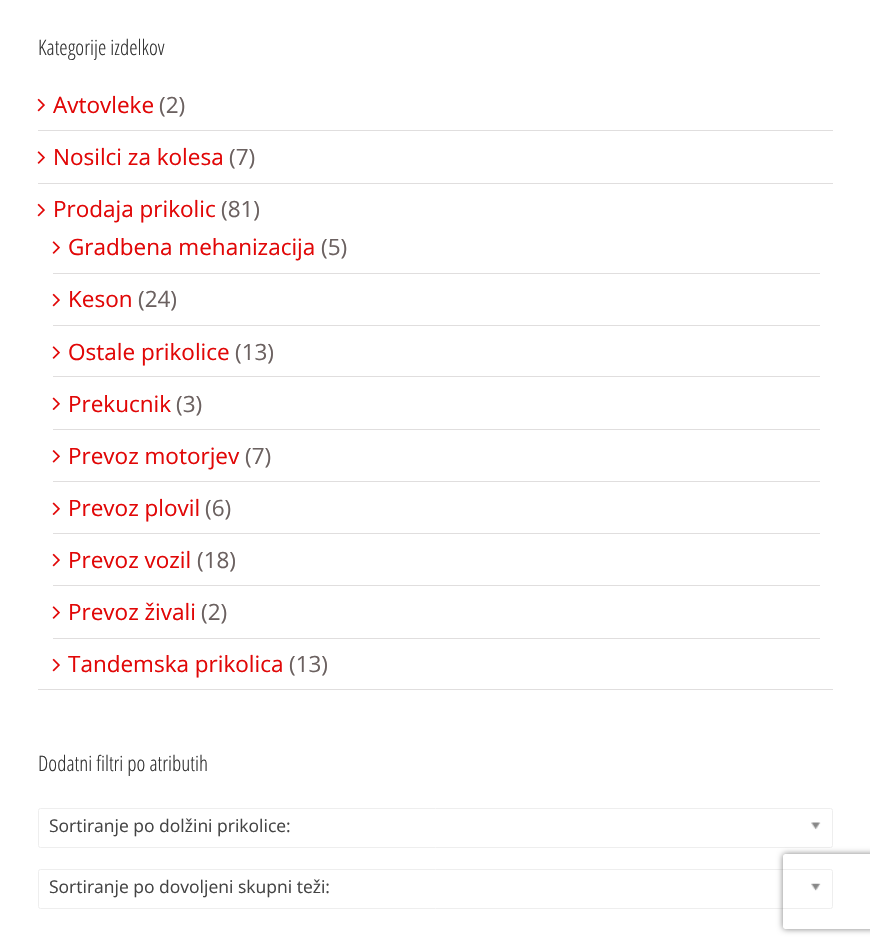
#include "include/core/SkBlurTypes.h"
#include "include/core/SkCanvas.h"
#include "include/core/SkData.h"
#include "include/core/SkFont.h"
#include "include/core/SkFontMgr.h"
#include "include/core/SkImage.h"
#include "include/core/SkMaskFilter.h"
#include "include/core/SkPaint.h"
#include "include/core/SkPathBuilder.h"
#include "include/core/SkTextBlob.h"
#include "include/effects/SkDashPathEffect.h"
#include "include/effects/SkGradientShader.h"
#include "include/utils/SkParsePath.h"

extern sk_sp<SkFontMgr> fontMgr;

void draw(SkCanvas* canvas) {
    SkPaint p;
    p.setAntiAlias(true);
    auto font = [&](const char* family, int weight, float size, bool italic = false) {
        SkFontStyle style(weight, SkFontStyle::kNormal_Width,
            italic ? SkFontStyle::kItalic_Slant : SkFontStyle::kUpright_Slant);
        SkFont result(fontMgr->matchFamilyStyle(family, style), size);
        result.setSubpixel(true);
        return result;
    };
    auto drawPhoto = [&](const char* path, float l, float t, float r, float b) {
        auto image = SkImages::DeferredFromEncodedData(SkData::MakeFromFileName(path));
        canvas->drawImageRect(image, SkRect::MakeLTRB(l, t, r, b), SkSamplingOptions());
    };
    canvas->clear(0xFFFFFFFF);
    auto font1 = font("Open Sans Condensed", 300, 21.25f);
    p.setColor(0xFF333333);
    canvas->drawString("Kategorije izdelkov", 38, 55, font1, p);
    p.setColor(0xFFE0DEDE);
    canvas->drawRect(SkRect::MakeLTRB(38, 130, 833, 131), p);
    drawPhoto("media/1.png", 37, 98, 45, 112);
    auto font2 = font("Open Sans", 400, 22.5f);
    p.setColor(0xFFE10707);
    canvas->drawString("Avtovleke", 53, 113, font2, p);
    p.setColor(0xFF6B6160);
    canvas->drawString("(2)", 159, 113, font2, p);
    p.setColor(0xFFE0DEDE);
    canvas->drawRect(SkRect::MakeLTRB(38, 183, 833, 184), p);
    drawPhoto("media/2.png", 37, 151, 45, 164);
    p.setColor(0xFFE10707);
    canvas->drawString("Nosilci za kolesa", 53, 165, font2, p);
    p.setColor(0xFF6B6160);
    canvas->drawString("(7)", 229, 165, font2, p);
    p.setColor(0xFFE0DEDE);
    canvas->drawRect(SkRect::MakeLTRB(38, 689, 833, 690), p);
    drawPhoto("media/1.png", 37, 203, 45, 217);
    p.setColor(0xFFE10707);
    canvas->drawString("Prodaja prikolic", 53, 217, font2, p);
    p.setColor(0xFF6B6160);
    canvas->drawString("(81)", 221, 217, font2, p);
    p.setColor(0xFFE0DEDE);
    canvas->drawRect(SkRect::MakeLTRB(53, 273, 820, 274), p);
    drawPhoto("media/2.png", 52, 241, 60, 254);
    p.setColor(0xFFE10707);
    canvas->drawString("Gradbena mehanizacija", 68, 255, font2, p);
    p.setColor(0xFF6B6160);
    canvas->drawString("(5)", 321, 255, font2, p);
    p.setColor(0xFFE0DEDE);
    canvas->drawRect(SkRect::MakeLTRB(53, 325, 820, 326), p);
    drawPhoto("media/1.png", 52, 293, 60, 307);
    p.setColor(0xFFE10707);
    canvas->drawString("Keson", 68, 307, font2, p);
    p.setColor(0xFF6B6160);
    canvas->drawString("(24)", 138, 307, font2, p);
    p.setColor(0xFFE0DEDE);
    canvas->drawRect(SkRect::MakeLTRB(53, 376, 820, 377), p);
    drawPhoto("media/2.png", 52, 346, 60, 359);
    p.setColor(0xFFE10707);
    canvas->drawString("Ostale prikolice", 68, 360, font2, p);
    p.setColor(0xFF6B6160);
    canvas->drawString("(13)", 235, 360, font2, p);
    p.setColor(0xFFE0DEDE);
    canvas->drawRect(SkRect::MakeLTRB(53, 429, 820, 430), p);
    drawPhoto("media/3.png", 52, 397, 60, 410);
    p.setColor(0xFFE10707);
    canvas->drawString("Prekucnik", 68, 412, font2, p);
    p.setColor(0xFF6B6160);
    canvas->drawString("(3)", 176, 412, font2, p);
    p.setColor(0xFFE0DEDE);
    canvas->drawRect(SkRect::MakeLTRB(53, 481, 820, 482), p);
    drawPhoto("media/4.png", 52, 450, 60, 463);
    p.setColor(0xFFE10707);
    canvas->drawString("Prevoz motorjev", 68, 464, font2, p);
    p.setColor(0xFF6B6160);
    canvas->drawString("(7)", 245, 464, font2, p);
    p.setColor(0xFFE0DEDE);
    canvas->drawRect(SkRect::MakeLTRB(53, 533, 820, 534), p);
    drawPhoto("media/3.png", 52, 502, 60, 515);
    p.setColor(0xFFE10707);
    canvas->drawString("Prevoz plovil", 68, 516, font2, p);
    p.setColor(0xFF6B6160);
    canvas->drawString("(6)", 205, 516, font2, p);
    p.setColor(0xFFE0DEDE);
    canvas->drawRect(SkRect::MakeLTRB(53, 585, 820, 586), p);
    drawPhoto("media/1.png", 52, 553, 60, 567);
    p.setColor(0xFFE10707);
    canvas->drawString("Prevoz vozil", 68, 568, font2, p);
    p.setColor(0xFF6B6160);
    canvas->drawString("(18)", 197, 568, font2, p);
    p.setColor(0xFFE0DEDE);
    canvas->drawRect(SkRect::MakeLTRB(53, 638, 820, 639), p);
    drawPhoto("media/2.png", 52, 606, 60, 619);
    p.setColor(0xFFE10707);
    canvas->drawString("Prevoz živali", 68, 620, font2, p);
    p.setColor(0xFF6B6160);
    canvas->drawString("(2)", 201, 620, font2, p);
    drawPhoto("media/1.png", 52, 658, 60, 672);
    p.setColor(0xFFE10707);
    canvas->drawString("Tandemska prikolica", 68, 672, font2, p);
    p.setColor(0xFF6B6160);
    canvas->drawString("(13)", 289, 672, font2, p);
    p.setColor(0xFF333333);
    canvas->drawString("Dodatni filtri po atributih", 38, 771, font1, p);
    p.setStyle(SkPaint::kStroke_Style);
    p.setStrokeWidth(1);
    p.setColor(0xFFEEEEEE);
    canvas->drawRoundRect(SkRect::MakeLTRB(38.5f, 808.5f, 832.5f, 847.5f), 2, 2, p);
    auto font3 = font("Open Sans", 400, 17.5f);
    p.setStyle(SkPaint::kFill_Style);
    p.setColor(0xFF444444);
    canvas->drawString("Sortiranje po dolžini prikolice:", 49, 832, font3, p);
    drawPhoto("media/5.png", 811, 822, 821, 830);
    p.setStyle(SkPaint::kStroke_Style);
    p.setColor(0xFFEEEEEE);
    canvas->drawRoundRect(SkRect::MakeLTRB(38.5f, 869.5f, 832.5f, 908.5f), 2, 2, p);
    p.setStyle(SkPaint::kFill_Style);
    p.setColor(0xFF444444);
    canvas->drawString("Sortiranje po dovoljeni skupni teži:", 49, 893, font3, p);
    drawPhoto("media/6.png", 811, 883, 821, 891);
    canvas->save();
    canvas->clipPath(SkPathBuilder(SkPathFillType::kEvenOdd).moveTo(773, 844).lineTo(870, 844).lineTo(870, 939).lineTo(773, 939).close().moveTo(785.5f, 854).lineTo(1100.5f, 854).cubicTo(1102, 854, 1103, 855, 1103, 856.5f).lineTo(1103, 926.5f).cubicTo(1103, 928, 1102, 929, 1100.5f, 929).lineTo(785.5f, 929).cubicTo(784, 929, 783, 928, 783, 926.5f).lineTo(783, 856.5f).cubicTo(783, 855, 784, 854, 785.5f, 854).close().detach(), true);
    p.setColor(0xFF808080);
    p.setMaskFilter(SkMaskFilter::MakeBlur(kNormal_SkBlurStyle, 3));
    canvas->drawRoundRect(SkRect::MakeLTRB(783, 854, 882, 929), 2.5f, 2.5f, p);
    p.setMaskFilter(nullptr);
    canvas->restore();
}
